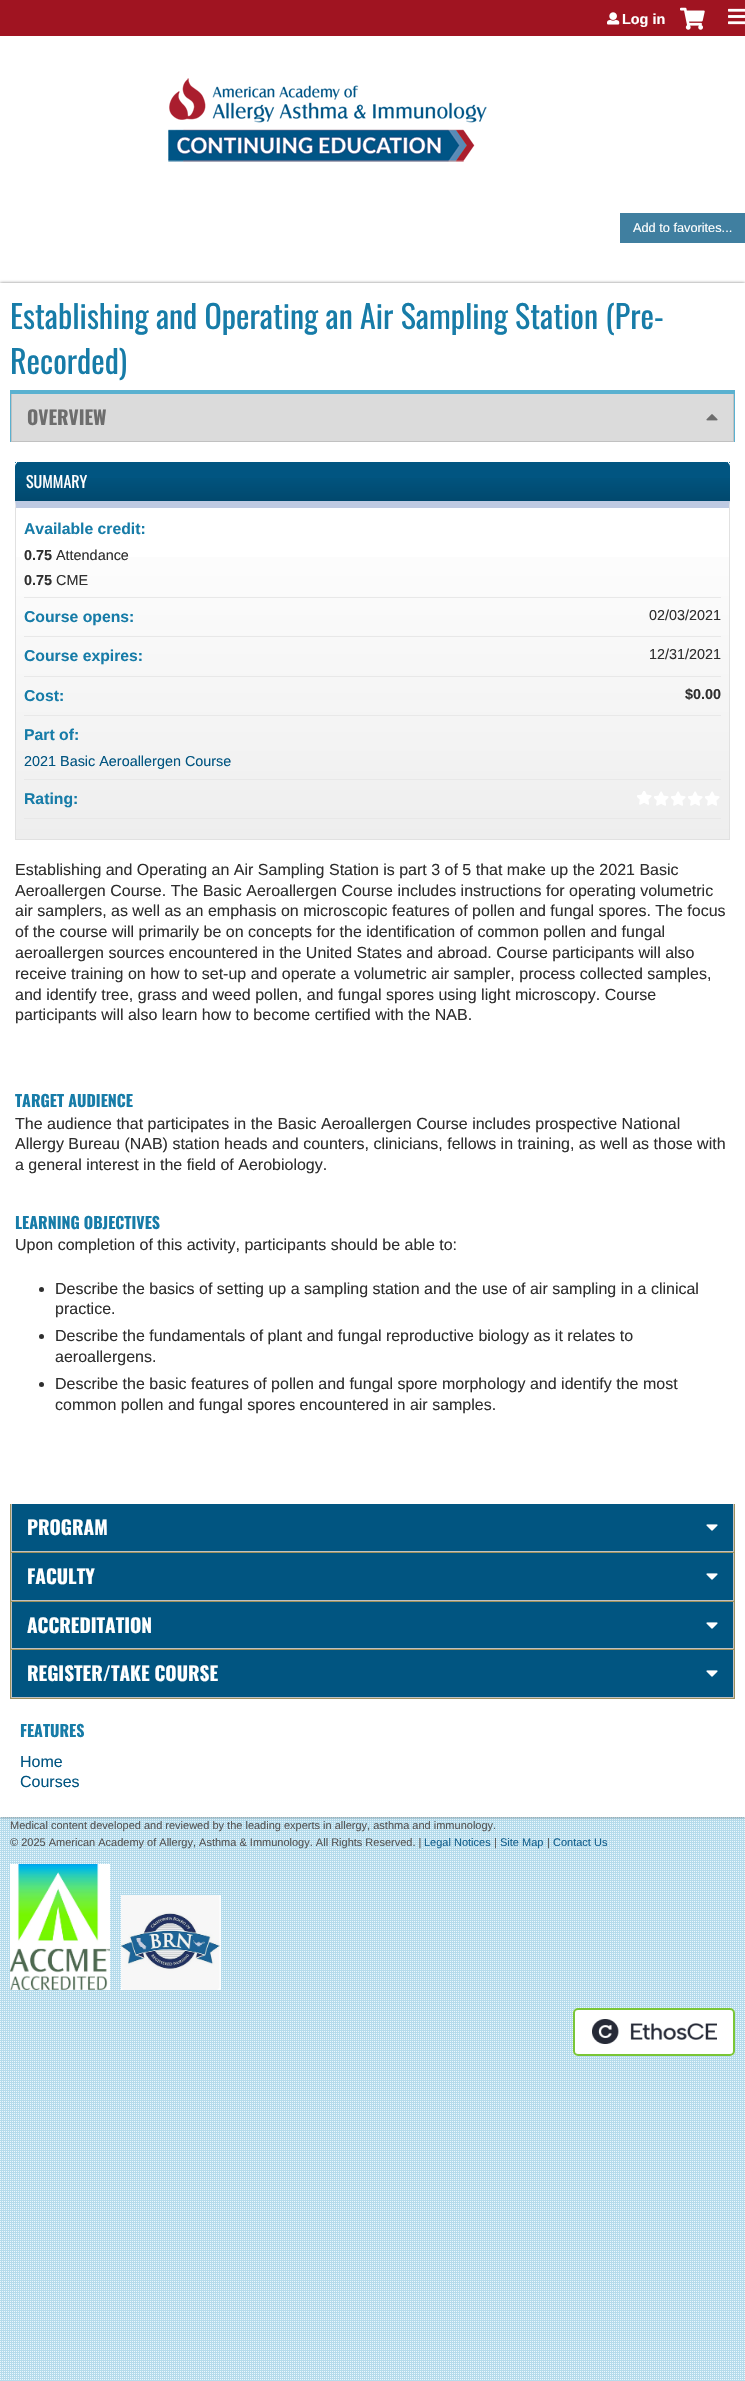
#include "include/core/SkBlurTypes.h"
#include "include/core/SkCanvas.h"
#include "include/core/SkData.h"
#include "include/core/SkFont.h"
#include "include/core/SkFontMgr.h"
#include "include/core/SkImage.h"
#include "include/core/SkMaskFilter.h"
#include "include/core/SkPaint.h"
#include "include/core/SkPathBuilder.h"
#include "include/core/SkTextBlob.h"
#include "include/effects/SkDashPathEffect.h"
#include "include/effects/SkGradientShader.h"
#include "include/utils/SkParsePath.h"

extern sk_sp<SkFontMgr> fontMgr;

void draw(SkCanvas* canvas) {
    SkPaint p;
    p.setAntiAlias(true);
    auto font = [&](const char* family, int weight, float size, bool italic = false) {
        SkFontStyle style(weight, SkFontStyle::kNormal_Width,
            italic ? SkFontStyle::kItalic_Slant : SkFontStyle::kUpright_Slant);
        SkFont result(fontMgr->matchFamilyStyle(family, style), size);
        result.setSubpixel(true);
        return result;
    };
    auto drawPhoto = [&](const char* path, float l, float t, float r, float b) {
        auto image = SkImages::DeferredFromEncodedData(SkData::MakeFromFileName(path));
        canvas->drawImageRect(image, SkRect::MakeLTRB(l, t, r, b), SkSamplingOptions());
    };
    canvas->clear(0xFFFFFFFF);
    drawPhoto("media/1.png", 0, 1817, 745, 2381);
    p.setColor(0xFFA01421);
    canvas->drawRect(SkRect::MakeLTRB(0, 0, 745, 36), p);
    drawPhoto("media/2.png", 168, 78, 487, 162);
    drawPhoto("media/3.png", 607, 12, 620, 25);
    auto font1 = font("Liberation Sans", 700, 14.4f);
    p.setColor(0xFFFFFFFF);
    canvas->drawString("Log in", 622, 24, font1, p);
    drawPhoto("media/4.png", 680, 7, 705, 30);
    drawPhoto("media/5.png", 728, 8, 745, 25);
    p.setColor(0xFF407FA0);
    canvas->drawRect(SkRect::MakeLTRB(620, 213, 745, 243), p);
    auto font2 = font("Liberation Sans", 400, 12.75f);
    p.setColor(0xFFFFFFFF);
    canvas->drawString("Add to favorites...", 633, 232, font2, p);
    p.setColor(0x80000000);
    p.setMaskFilter(SkMaskFilter::MakeBlur(kNormal_SkBlurStyle, 1.5f));
    canvas->drawRect(SkRect::MakeLTRB(0, 283, 745, 1817), p);
    p.setMaskFilter(nullptr);
    p.setColor(0xFFFFFFFF);
    canvas->drawRect(SkRect::MakeLTRB(0, 283, 745, 1817), p);
    auto font3 = font("Oswald", 400, 32);
    p.setColor(0xFF177CA8);
    canvas->drawString("Establishing and Operating an Air Sampling Station (Pre-", 10, 329, font3, p);
    canvas->drawString("Recorded)", 10, 374, font3, p);
    {
        const struct { float l, t, r, b; SkColor color; } items[] = {
            {10, 390, 735, 394, 0xFF5AB1D0},
            {734, 390, 735, 442, 0xFF5AB1D0},
            {10, 390, 11, 442, 0xFF5AB1D0},
            {12, 394, 733, 441, 0xFFDBDBDB},
            {733, 394, 734, 442, 0xFFC1C1C1},
            {11, 441, 734, 442, 0xFFC1C1C1},
            {11, 394, 12, 442, 0xFFC1C1C1},
        };
        for (auto [l, t, r, b, color] : items) {
            p.setColor(color);
            canvas->drawRect(SkRect::MakeLTRB(l, t, r, b), p);
        }
    }
    auto font4 = font("Oswald", 700, 19.25f);
    p.setColor(0xFF6D6D6D);
    canvas->drawString("OVERVIEW", 27, 425, font4, p);
    drawPhoto("media/6.png", 706, 414, 718, 421);
    p.setStyle(SkPaint::kStroke_Style);
    p.setStrokeWidth(1);
    p.setColor(0xFF177CA8);
    p.setPathEffect(SkDashPathEffect::Make({{1, 1}}, 0));
    canvas->drawPath(SkPathBuilder().moveTo(15, 462.5f).lineTo(730, 462.5f).detach(), p);
    p.setPathEffect(nullptr);
    p.setStyle(SkPaint::kFill_Style);
    p.setColor(0xFF015581);
    canvas->drawPath(SkPathBuilder().moveTo(20, 462).lineTo(725, 462).cubicTo(728, 462, 730, 464, 730, 467).lineTo(730, 501).lineTo(15, 501).lineTo(15, 467).cubicTo(15, 464, 17, 462, 20, 462).close().detach(), p);
    {
        const SkColor colors[] = {0x26000000, 0x00000000};
        const float stops[] = {0, 0.7f};
        const SkPoint ends[] = {{373, 501}, {373, 462}};
        p.setShader(SkGradientShader::MakeLinear(ends, colors, stops, 2, SkTileMode::kClamp));
        p.setAlpha(255);
    }
    canvas->drawRect(SkRect::MakeLTRB(15, 478, 730, 501), p);
    auto font5 = font("Oswald", 400, 16);
    p.setShader(nullptr);
    p.setColor(0xFFFFFFFF);
    canvas->drawString("SUMMARY", 26, 488, font5, p);
    {
        const SkColor colors[] = {0xFFEEEEEE, 0xFFFFFFFF};
        const float stops[] = {0, 1};
        const SkPoint ends[] = {{373, 839}, {373, 508}};
        p.setShader(SkGradientShader::MakeLinear(ends, colors, stops, 2, SkTileMode::kClamp));
        p.setAlpha(255);
    }
    canvas->drawRect(SkRect::MakeLTRB(16, 557, 729, 839), p);
    p.setShader(nullptr);
    p.setColor(0xFFBECAE2);
    canvas->drawPath(SkPathBuilder().moveTo(15, 501).lineTo(730, 501).lineTo(729, 508).lineTo(16, 508).close().detach(), p);
    p.setColor(0xFFE1E1E1);
    canvas->drawPath(SkPathBuilder().moveTo(730, 501).lineTo(730, 840).lineTo(729, 839).lineTo(729, 508).close().detach(), p);
    canvas->drawRect(SkRect::MakeLTRB(15, 839, 730, 840), p);
    canvas->drawPath(SkPathBuilder().moveTo(15, 840).lineTo(15, 501).lineTo(16, 508).lineTo(16, 839).close().detach(), p);
    p.setColor(0xFFE8E8E8);
    canvas->drawRect(SkRect::MakeLTRB(24, 597, 721, 598), p);
    auto font6 = font("Liberation Sans", 700, 15.75f);
    p.setColor(0xFF177CA8);
    canvas->drawString("Available credit:", 24, 534, font6, p);
    p.setColor(0xFF2F2F2F);
    canvas->drawString("0.75", 24, 560, font1, p);
    auto font7 = font("Liberation Sans", 400, 14.4f);
    canvas->drawString("Attendance", 56, 560, font7, p);
    canvas->drawString("0.75", 24, 585, font1, p);
    canvas->drawString("CME", 56, 585, font7, p);
    p.setColor(0xFFE8E8E8);
    canvas->drawRect(SkRect::MakeLTRB(24, 636, 721, 637), p);
    p.setColor(0xFF177CA8);
    canvas->drawString("Course opens:", 24, 622, font6, p);
    p.setColor(0xFF2F2F2F);
    canvas->drawString("02/03/2021", 649, 620, font7, p);
    p.setColor(0xFFE8E8E8);
    canvas->drawRect(SkRect::MakeLTRB(24, 676, 721, 677), p);
    p.setColor(0xFF177CA8);
    canvas->drawString("Course expires:", 24, 661, font6, p);
    p.setColor(0xFF2F2F2F);
    canvas->drawString("12/31/2021", 649, 659, font7, p);
    p.setColor(0xFFE8E8E8);
    canvas->drawRect(SkRect::MakeLTRB(24, 715, 721, 716), p);
    p.setColor(0xFF177CA8);
    canvas->drawString("Cost:", 24, 701, font6, p);
    p.setColor(0xFF2F2F2F);
    canvas->drawString("$0.00", 685, 699, font1, p);
    p.setColor(0xFFE8E8E8);
    canvas->drawRect(SkRect::MakeLTRB(24, 779, 721, 780), p);
    p.setColor(0xFF177CA8);
    canvas->drawString("Part of:", 24, 740, font6, p);
    p.setColor(0xFF015581);
    canvas->drawString("2021 Basic Aeroallergen Course", 24, 766, font7, p);
    p.setColor(0xFFE8E8E8);
    canvas->drawRect(SkRect::MakeLTRB(24, 818, 721, 819), p);
    p.setColor(0xFF177CA8);
    canvas->drawString("Rating:", 24, 804, font6, p);
    drawPhoto("media/7.png", 637, 791, 652, 805);
    drawPhoto("media/8.png", 654, 791, 669, 806);
    drawPhoto("media/8.png", 671, 791, 686, 806);
    drawPhoto("media/8.png", 688, 791, 703, 806);
    drawPhoto("media/8.png", 705, 791, 720, 806);
    auto font8 = font("Liberation Sans", 400, 16);
    p.setColor(0xFF2F2F2F);
    {
        const struct { const char* s; float x, y; } items[] = {
            {"Establishing and Operating an Air Sampling Station is part 3 of 5 that make up the 2021 Basic", 15, 875},
            {"Aeroallergen Course. The Basic Aeroallergen Course includes instructions for operating volumetric", 15, 896},
            {"air samplers, as well as an emphasis on microscopic features of pollen and fungal spores. The focus", 15, 916},
            {"of the course will primarily be on concepts for the identification of common pollen and fungal", 15, 937},
            {"aeroallergen sources encountered in the United States and abroad. Course participants will also", 15, 958},
            {"receive training on how to set-up and operate a volumetric air sampler, process collected samples,", 15, 979},
            {"and identify tree, grass and weed pollen, and fungal spores using light microscopy. Course", 15, 1000},
            {"participants will also learn how to become certified with the NAB.", 15, 1020},
        };
        for (auto [s, x, y] : items) {
            canvas->drawString(s, x, y, font8, p);
        }
    }
    auto font9 = font("Oswald", 700, 16);
    p.setColor(0xFF177CA8);
    canvas->drawString("TARGET AUDIENCE", 15, 1107, font9, p);
    p.setColor(0xFF2F2F2F);
    {
        const struct { const char* s; float x, y; } items[] = {
            {"The audience that participates in the Basic Aeroallergen Course includes prospective National", 15, 1129},
            {"Allergy Bureau (NAB) station heads and counters, clinicians, fellows in training, as well as those with", 15, 1149},
            {"a general interest in the field of Aerobiology.", 15, 1170},
        };
        for (auto [s, x, y] : items) {
            canvas->drawString(s, x, y, font8, p);
        }
    }
    p.setColor(0xFF177CA8);
    canvas->drawString("LEARNING OBJECTIVES", 15, 1229, font9, p);
    p.setColor(0xFF2F2F2F);
    canvas->drawString("Upon completion of this activity, participants should be able to:", 15, 1250, font8, p);
    canvas->drawCircle(41.5f, 1289.5f, 2.5f, p);
    canvas->drawString("Describe the basics of setting up a sampling station and the use of air sampling in a clinical", 55, 1294, font8, p);
    canvas->drawString("practice.", 55, 1314, font8, p);
    canvas->drawCircle(41.5f, 1336.5f, 2.5f, p);
    canvas->drawString("Describe the fundamentals of plant and fungal reproductive biology as it relates to", 55, 1341, font8, p);
    canvas->drawString("aeroallergens.", 55, 1362, font8, p);
    canvas->drawCircle(41.5f, 1384.5f, 2.5f, p);
    canvas->drawString("Describe the basic features of pollen and fungal spore morphology and identify the most", 55, 1389, font8, p);
    canvas->drawString("common pollen and fungal spores encountered in air samples.", 55, 1410, font8, p);
    {
        const struct { float l, t, r, b; SkColor color; } items[] = {
            {734, 1504, 735, 1699, 0xFF9C905C},
            {10, 1552, 735, 1553, 0xFF9C905C},
            {10, 1504, 11, 1553, 0xFF9C905C},
            {12, 1504, 733, 1551, 0xFF015581},
            {733, 1504, 734, 1552, 0xFFC1C1C1},
            {11, 1551, 734, 1552, 0xFFC1C1C1},
            {11, 1504, 12, 1552, 0xFFC1C1C1},
        };
        for (auto [l, t, r, b, color] : items) {
            p.setColor(color);
            canvas->drawRect(SkRect::MakeLTRB(l, t, r, b), p);
        }
    }
    p.setColor(0xFFFFFFFF);
    canvas->drawString("PROGRAM", 27, 1535, font4, p);
    drawPhoto("media/9.png", 706, 1524, 718, 1531);
    {
        const struct { float l, t, r, b; SkColor color; } items[] = {
            {10, 1601, 735, 1602, 0xFF9C905C},
            {10, 1553, 11, 1602, 0xFF9C905C},
            {12, 1553, 733, 1600, 0xFF015581},
            {733, 1553, 734, 1601, 0xFFC1C1C1},
            {11, 1600, 734, 1601, 0xFFC1C1C1},
            {11, 1553, 12, 1601, 0xFFC1C1C1},
        };
        for (auto [l, t, r, b, color] : items) {
            p.setColor(color);
            canvas->drawRect(SkRect::MakeLTRB(l, t, r, b), p);
        }
    }
    p.setColor(0xFFFFFFFF);
    canvas->drawString("FACULTY", 27, 1584, font4, p);
    drawPhoto("media/9.png", 706, 1573, 718, 1580);
    {
        const struct { float l, t, r, b; SkColor color; } items[] = {
            {10, 1649, 735, 1650, 0xFF9C905C},
            {10, 1602, 11, 1650, 0xFF9C905C},
            {12, 1602, 733, 1648, 0xFF015581},
            {733, 1602, 734, 1649, 0xFFC1C1C1},
            {11, 1648, 734, 1649, 0xFFC1C1C1},
            {11, 1602, 12, 1649, 0xFFC1C1C1},
        };
        for (auto [l, t, r, b, color] : items) {
            p.setColor(color);
            canvas->drawRect(SkRect::MakeLTRB(l, t, r, b), p);
        }
    }
    p.setColor(0xFFFFFFFF);
    canvas->drawString("ACCREDITATION", 27, 1633, font4, p);
    drawPhoto("media/9.png", 706, 1622, 718, 1629);
    {
        const struct { float l, t, r, b; SkColor color; } items[] = {
            {10, 1698, 735, 1699, 0xFF9C905C},
            {10, 1650, 11, 1699, 0xFF9C905C},
            {12, 1650, 733, 1697, 0xFF015581},
            {733, 1650, 734, 1698, 0xFFC1C1C1},
            {11, 1697, 734, 1698, 0xFFC1C1C1},
            {11, 1650, 12, 1698, 0xFFC1C1C1},
        };
        for (auto [l, t, r, b, color] : items) {
            p.setColor(color);
            canvas->drawRect(SkRect::MakeLTRB(l, t, r, b), p);
        }
    }
    p.setColor(0xFFFFFFFF);
    canvas->drawString("REGISTER/TAKE COURSE", 27, 1681, font4, p);
    drawPhoto("media/9.png", 706, 1670, 718, 1677);
    p.setColor(0xFF177CA8);
    canvas->drawString("FEATURES", 20, 1737, font9, p);
    p.setColor(0xFF015581);
    canvas->drawString("Home", 20, 1767, font8, p);
    canvas->drawString("Courses", 20, 1787, font8, p);
    auto font10 = font("Liberation Sans", 400, 11);
    p.setColor(0xFF555555);
    canvas->drawString("Medical content developed and reviewed by the leading experts in allergy, asthma and immunology.", 10, 1829, font10, p);
    canvas->drawString("© 2025 American Academy of Allergy, Asthma & Immunology. All Rights Reserved. |", 10, 1846, font10, p);
    p.setColor(0xFF13608D);
    canvas->drawString("Legal Notices", 424, 1846, font10, p);
    p.setColor(0xFF555555);
    canvas->drawString("|", 494, 1846, font10, p);
    p.setColor(0xFF13608D);
    canvas->drawString("Site Map", 500, 1846, font10, p);
    p.setColor(0xFF555555);
    canvas->drawString("|", 547, 1846, font10, p);
    p.setColor(0xFF13608D);
    canvas->drawString("Contact Us", 553, 1846, font10, p);
    drawPhoto("media/10.png", 10, 1864, 110, 1990);
    drawPhoto("media/11.png", 121, 1895, 221, 1990);
    p.setColor(0xFFFFFFFF);
    canvas->drawRoundRect(SkRect::MakeLTRB(573, 2008, 735, 2056), 5, 5, p);
    drawPhoto("media/12.png", 592, 2019, 717, 2044);
    p.setStyle(SkPaint::kStroke_Style);
    p.setStrokeWidth(2);
    p.setColor(0xFF7AC637);
    canvas->drawRoundRect(SkRect::MakeLTRB(574, 2009, 734, 2055), 4, 4, p);
}
